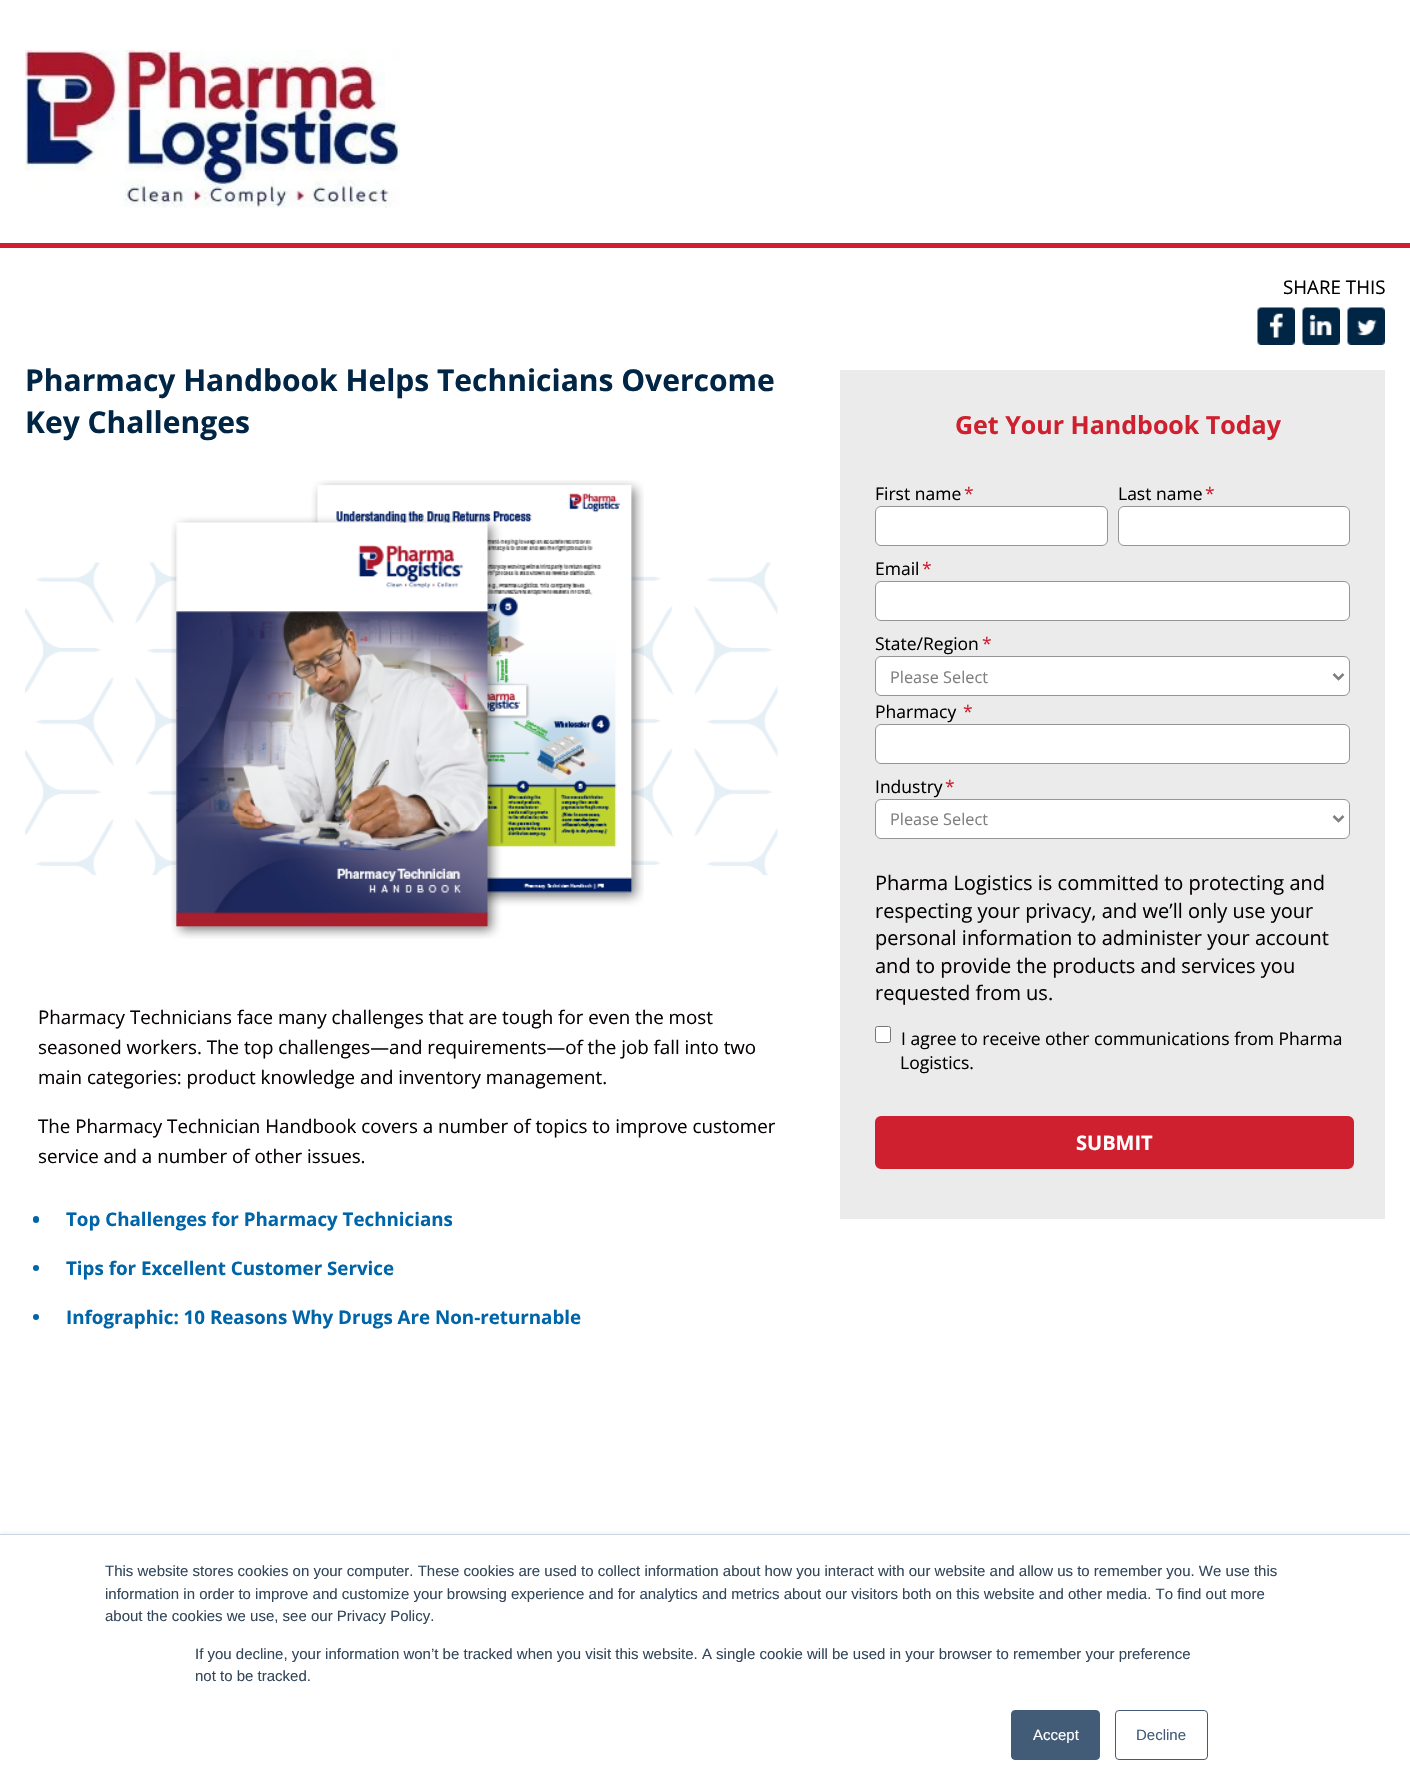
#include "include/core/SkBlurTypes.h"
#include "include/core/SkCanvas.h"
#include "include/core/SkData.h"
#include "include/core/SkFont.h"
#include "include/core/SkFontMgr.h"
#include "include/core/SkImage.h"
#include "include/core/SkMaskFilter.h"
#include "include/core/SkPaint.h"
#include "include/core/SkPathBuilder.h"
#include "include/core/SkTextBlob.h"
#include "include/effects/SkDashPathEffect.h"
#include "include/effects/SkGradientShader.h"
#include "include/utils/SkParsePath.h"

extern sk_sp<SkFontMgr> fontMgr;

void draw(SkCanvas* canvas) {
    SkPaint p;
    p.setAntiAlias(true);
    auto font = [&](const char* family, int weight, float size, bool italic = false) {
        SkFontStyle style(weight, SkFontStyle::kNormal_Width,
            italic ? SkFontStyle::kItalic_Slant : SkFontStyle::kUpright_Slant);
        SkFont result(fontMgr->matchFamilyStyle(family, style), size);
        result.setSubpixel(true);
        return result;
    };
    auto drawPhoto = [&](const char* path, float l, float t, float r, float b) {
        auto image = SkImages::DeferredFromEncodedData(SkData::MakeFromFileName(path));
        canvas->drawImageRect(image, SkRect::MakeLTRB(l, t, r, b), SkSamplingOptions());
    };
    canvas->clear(0xFFFFFFFF);
    drawPhoto("media/1.png", 25, 50, 400, 208);
    p.setColor(0xFFCE202F);
    canvas->drawRect(SkRect::MakeLTRB(0, 243, 1410, 248), p);
    auto font1 = font("Open Sans", 400, 18.75f);
    p.setColor(0xFF000000);
    canvas->drawString("SHARE THIS", 1283, 294, font1, p);
    drawPhoto("media/2.png", 1257, 307, 1295, 345);
    drawPhoto("media/3.png", 1302, 307, 1340, 345);
    drawPhoto("media/4.png", 1347, 307, 1385, 345);
    auto font2 = font("Open Sans", 700, 30);
    p.setColor(0xFF002545);
    canvas->drawString("Pharmacy Handbook Helps Technicians Overcome", 25, 391, font2, p);
    canvas->drawString("Key Challenges", 25, 433, font2, p);
    drawPhoto("media/5.png", 25, 562, 778, 875);
    drawPhoto("media/6.png", 171, 480, 644, 939);
    p.setColor(0xFF060202);
    {
        const struct { const char* s; float x, y; } items[] = {
            {"Pharmacy Technicians face many challenges that are tough for even the most", 38, 1024},
            {"seasoned workers. The top challenges—and requirements—of the job fall into two", 38, 1054},
            {"main categories: product knowledge and inventory management.", 38, 1084},
            {"The Pharmacy Technician Handbook covers a number of topics to improve customer", 38, 1133},
            {"service and a number of other issues.", 38, 1163},
        };
        for (auto [s, x, y] : items) {
            canvas->drawString(s, x, y, font1, p);
        }
    }
    p.setColor(0xFF0064A8);
    canvas->drawRoundRect(SkRect::MakeLTRB(33, 1216, 39, 1223), 3, 3, p);
    auto font3 = font("Open Sans", 700, 18.75f);
    canvas->drawString("Top Challenges for Pharmacy Technicians", 66, 1226, font3, p);
    canvas->drawCircle(36, 1268, 3, p);
    canvas->drawString("Tips for Excellent Customer Service", 66, 1275, font3, p);
    canvas->drawCircle(36, 1317, 3, p);
    canvas->drawString("Infographic: 10 Reasons Why Drugs Are Non-returnable", 66, 1324, font3, p);
    p.setColor(0xFFEBEBEB);
    canvas->drawRect(SkRect::MakeLTRB(840, 370, 1385, 1219), p);
    auto font4 = font("Open Sans", 700, 25);
    p.setColor(0xFFCE202F);
    canvas->drawString("Get Your Handbook Today", 955, 434, font4, p);
    auto font5 = font("Open Sans", 400, 17.5f);
    p.setColor(0xFF000000);
    canvas->drawString("First name", 875, 500, font5, p);
    p.setColor(0xFFCE202F);
    canvas->drawString("*", 964, 500, font5, p);
    p.setColor(0xFFFFFFFF);
    canvas->drawRoundRect(SkRect::MakeLTRB(875.5f, 506.5f, 1107.5f, 545.5f), 5.5f, 5.5f, p);
    p.setStyle(SkPaint::kStroke_Style);
    p.setStrokeWidth(1);
    p.setColor(0xFF959595);
    canvas->drawRoundRect(SkRect::MakeLTRB(875.5f, 506.5f, 1107.5f, 545.5f), 5.5f, 5.5f, p);
    p.setStyle(SkPaint::kFill_Style);
    p.setColor(0xFF000000);
    canvas->drawString("Last name", 1118, 500, font5, p);
    p.setColor(0xFFCE202F);
    canvas->drawString("*", 1205, 500, font5, p);
    p.setColor(0xFFFFFFFF);
    canvas->drawRoundRect(SkRect::MakeLTRB(1118.5f, 506.5f, 1349.5f, 545.5f), 5.5f, 5.5f, p);
    p.setStyle(SkPaint::kStroke_Style);
    p.setColor(0xFF959595);
    canvas->drawRoundRect(SkRect::MakeLTRB(1118.5f, 506.5f, 1349.5f, 545.5f), 5.5f, 5.5f, p);
    p.setStyle(SkPaint::kFill_Style);
    p.setColor(0xFF000000);
    canvas->drawString("Email", 875, 575, font5, p);
    p.setColor(0xFFCE202F);
    canvas->drawString("*", 922, 575, font5, p);
    p.setColor(0xFFFFFFFF);
    canvas->drawRoundRect(SkRect::MakeLTRB(875.5f, 581.5f, 1349.5f, 620.5f), 5.5f, 5.5f, p);
    p.setStyle(SkPaint::kStroke_Style);
    p.setColor(0xFF959595);
    canvas->drawRoundRect(SkRect::MakeLTRB(875.5f, 581.5f, 1349.5f, 620.5f), 5.5f, 5.5f, p);
    p.setStyle(SkPaint::kFill_Style);
    p.setColor(0xFF000000);
    canvas->drawString("State/Region", 875, 650, font5, p);
    p.setColor(0xFFCE202F);
    canvas->drawString("*", 982, 650, font5, p);
    p.setColor(0xFFFFFFFF);
    canvas->drawRoundRect(SkRect::MakeLTRB(875.5f, 656.5f, 1349.5f, 695.5f), 5.5f, 5.5f, p);
    p.setStyle(SkPaint::kStroke_Style);
    p.setColor(0xFF959595);
    canvas->drawRoundRect(SkRect::MakeLTRB(875.5f, 656.5f, 1349.5f, 695.5f), 5.5f, 5.5f, p);
    p.setStrokeWidth(2.5f);
    p.setColor(0xFF807F7F);
    canvas->drawPath(SkPathBuilder().moveTo(1333.5f, 674).lineTo(1338.5f, 679).lineTo(1343.5f, 674).detach(), p);
    auto font6 = font("Open Sans", 400, 16.25f);
    p.setStyle(SkPaint::kFill_Style);
    canvas->drawString("Please Select", 890, 683, font6, p);
    p.setColor(0xFF000000);
    canvas->drawString("Pharmacy", 875, 718, font5, p);
    p.setColor(0xFFCE202F);
    canvas->drawString("*", 963, 718, font5, p);
    p.setColor(0xFFFFFFFF);
    canvas->drawRoundRect(SkRect::MakeLTRB(875.5f, 724.5f, 1349.5f, 763.5f), 5.5f, 5.5f, p);
    p.setStyle(SkPaint::kStroke_Style);
    p.setStrokeWidth(1);
    p.setColor(0xFF959595);
    canvas->drawRoundRect(SkRect::MakeLTRB(875.5f, 724.5f, 1349.5f, 763.5f), 5.5f, 5.5f, p);
    p.setStyle(SkPaint::kFill_Style);
    p.setColor(0xFF000000);
    canvas->drawString("Industry", 875, 793, font5, p);
    p.setColor(0xFFCE202F);
    canvas->drawString("*", 945, 793, font5, p);
    p.setColor(0xFFFFFFFF);
    canvas->drawRoundRect(SkRect::MakeLTRB(875.5f, 799.5f, 1349.5f, 838.5f), 5.5f, 5.5f, p);
    p.setStyle(SkPaint::kStroke_Style);
    p.setColor(0xFF959595);
    canvas->drawRoundRect(SkRect::MakeLTRB(875.5f, 799.5f, 1349.5f, 838.5f), 5.5f, 5.5f, p);
    p.setStrokeWidth(2.5f);
    p.setColor(0xFF807F7F);
    canvas->drawPath(SkPathBuilder().moveTo(1333.5f, 816).lineTo(1338.5f, 821).lineTo(1343.5f, 816).detach(), p);
    p.setStyle(SkPaint::kFill_Style);
    canvas->drawString("Please Select", 890, 825, font6, p);
    auto font7 = font("Open Sans", 400, 20);
    p.setColor(0xFF060202);
    {
        const struct { const char* s; float x, y; } items[] = {
            {"Pharma Logistics is committed to protecting and", 875, 890},
            {"respecting your privacy, and we’ll only use your", 875, 918},
            {"personal information to administer your account", 875, 945},
            {"and to provide the products and services you", 875, 973},
            {"requested from us.", 875, 1000},
        };
        for (auto [s, x, y] : items) {
            canvas->drawString(s, x, y, font7, p);
        }
    }
    p.setColor(0xFFFFFFFF);
    canvas->drawRoundRect(SkRect::MakeLTRB(875.5f, 1026.5f, 890.5f, 1042.5f), 2, 2, p);
    p.setStyle(SkPaint::kStroke_Style);
    p.setStrokeWidth(1);
    p.setColor(0xFF767676);
    canvas->drawRoundRect(SkRect::MakeLTRB(875.5f, 1026.5f, 890.5f, 1042.5f), 2, 2, p);
    p.setStyle(SkPaint::kFill_Style);
    p.setColor(0xFF000000);
    canvas->drawString("I agree to receive other communications from Pharma", 901, 1045, font5, p);
    canvas->drawString("Logistics.", 900, 1069, font5, p);
    p.setColor(0xFFCE202F);
    canvas->drawRoundRect(SkRect::MakeLTRB(876.5f, 1117.5f, 1352.5f, 1167.5f), 4.5f, 4.5f, p);
    p.setStyle(SkPaint::kStroke_Style);
    p.setStrokeWidth(3);
    canvas->drawRoundRect(SkRect::MakeLTRB(876.5f, 1117.5f, 1352.5f, 1167.5f), 4.5f, 4.5f, p);
    auto font8 = font("Open Sans", 700, 20);
    p.setStyle(SkPaint::kFill_Style);
    p.setColor(0xFFFFFFFF);
    canvas->drawString("SUBMIT", 1076, 1150, font8, p);
    p.setColor(0xFFEAF0F6);
    p.setMaskFilter(SkMaskFilter::MakeBlur(kNormal_SkBlurStyle, 2));
    canvas->drawRect(SkRect::MakeLTRB(0, 1533, 1410, 1791), p);
    p.setMaskFilter(nullptr);
    p.setColor(0xFFFFFFFF);
    canvas->drawRect(SkRect::MakeLTRB(0, 1535, 1410, 1792), p);
    p.setColor(0xFFCBD6E2);
    canvas->drawRect(SkRect::MakeLTRB(0, 1534, 1410, 1535), p);
    auto font9 = font("Liberation Sans", 400, 15);
    p.setColor(0xFF33475B);
    {
        const struct { const char* s; float x, y; } items[] = {
            {"This website stores cookies on your computer. These cookies are used to collect information about how you interact with our website and allow us to remember you. We use this", 105, 1576},
            {"information in order to improve and customize your browsing experience and for analytics and metrics about our visitors both on this website and other media. To find out more", 105, 1599},
            {"about the cookies we use, see our Privacy Policy.", 105, 1621},
            {"If you decline, your information won’t be tracked when you visit this website. A single cookie will be used in your browser to remember your preference", 195, 1659},
            {"not to be tracked.", 195, 1681},
        };
        for (auto [s, x, y] : items) {
            canvas->drawString(s, x, y, font9, p);
        }
    }
    p.setColor(0xFF425B76);
    canvas->drawRoundRect(SkRect::MakeLTRB(1011.5f, 1710.5f, 1099.5f, 1759.5f), 3.5f, 3.5f, p);
    p.setStyle(SkPaint::kStroke_Style);
    p.setStrokeWidth(1);
    canvas->drawRoundRect(SkRect::MakeLTRB(1011.5f, 1710.5f, 1099.5f, 1759.5f), 3.5f, 3.5f, p);
    p.setStyle(SkPaint::kFill_Style);
    p.setColor(0xFFFFFFFF);
    canvas->drawString("Accept", 1033, 1740, font9, p);
    p.setStyle(SkPaint::kStroke_Style);
    p.setColor(0xFF425B76);
    canvas->drawRoundRect(SkRect::MakeLTRB(1115.5f, 1710.5f, 1207.5f, 1759.5f), 3.5f, 3.5f, p);
    p.setStyle(SkPaint::kFill_Style);
    canvas->drawString("Decline", 1136, 1740, font9, p);
}
